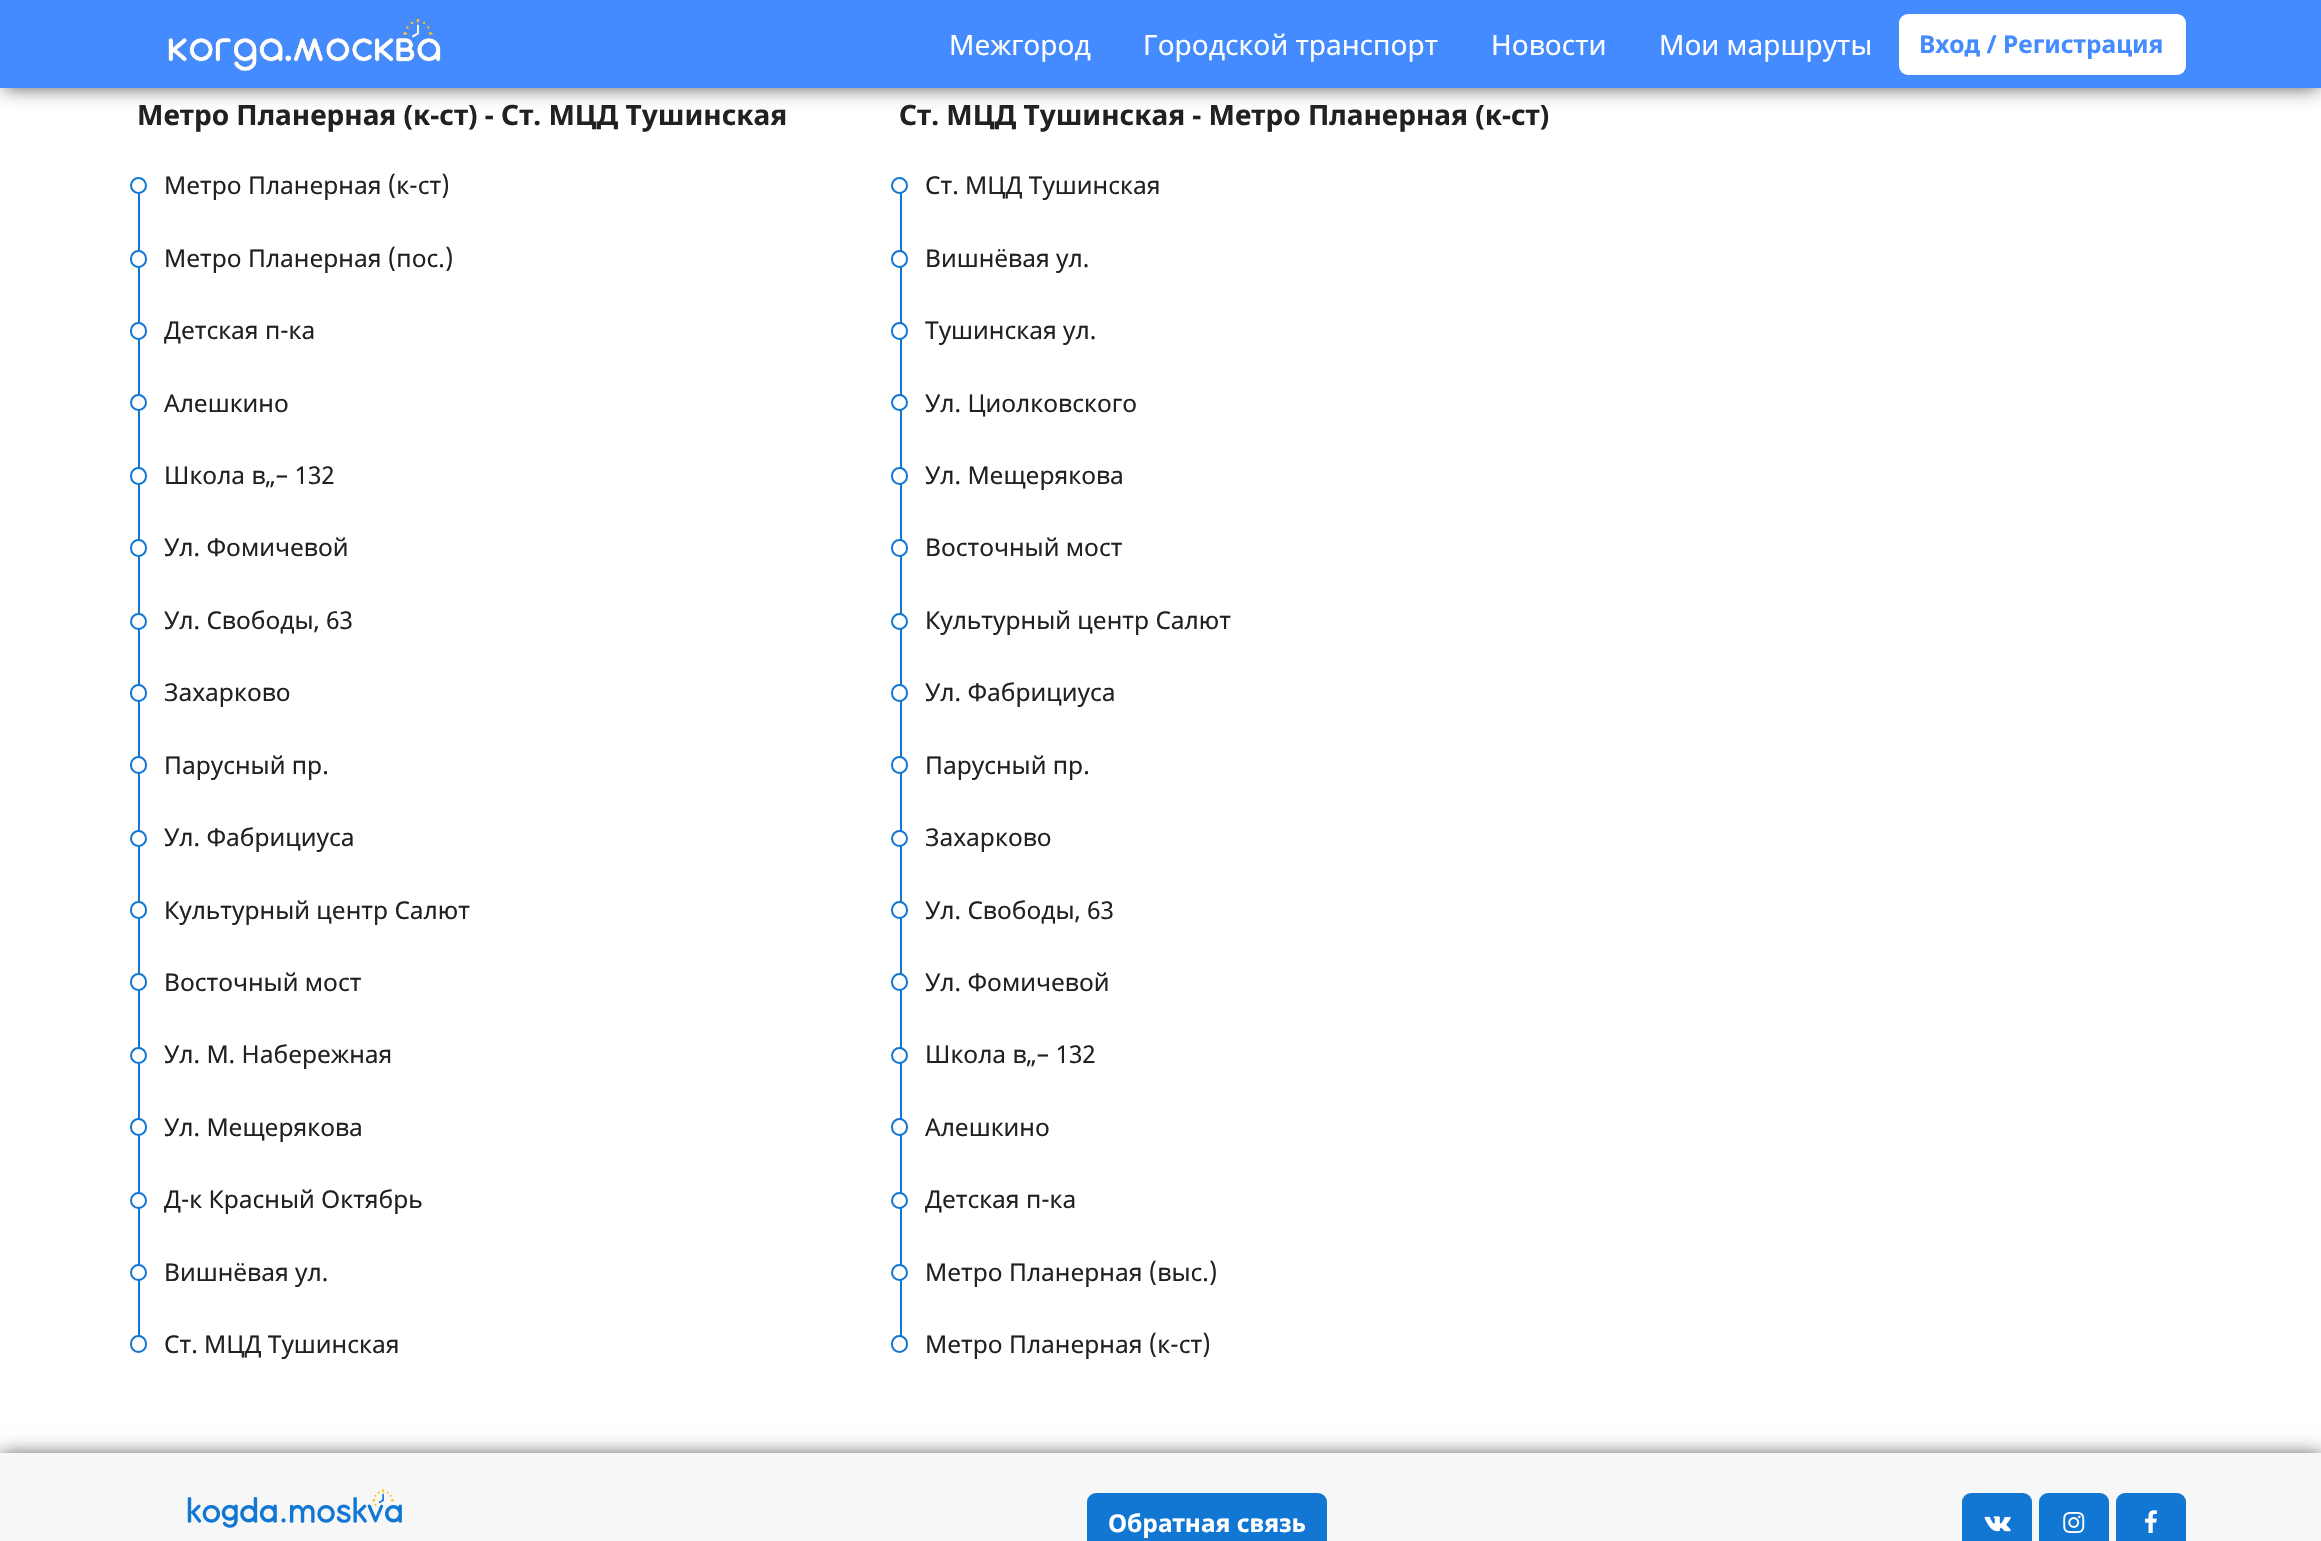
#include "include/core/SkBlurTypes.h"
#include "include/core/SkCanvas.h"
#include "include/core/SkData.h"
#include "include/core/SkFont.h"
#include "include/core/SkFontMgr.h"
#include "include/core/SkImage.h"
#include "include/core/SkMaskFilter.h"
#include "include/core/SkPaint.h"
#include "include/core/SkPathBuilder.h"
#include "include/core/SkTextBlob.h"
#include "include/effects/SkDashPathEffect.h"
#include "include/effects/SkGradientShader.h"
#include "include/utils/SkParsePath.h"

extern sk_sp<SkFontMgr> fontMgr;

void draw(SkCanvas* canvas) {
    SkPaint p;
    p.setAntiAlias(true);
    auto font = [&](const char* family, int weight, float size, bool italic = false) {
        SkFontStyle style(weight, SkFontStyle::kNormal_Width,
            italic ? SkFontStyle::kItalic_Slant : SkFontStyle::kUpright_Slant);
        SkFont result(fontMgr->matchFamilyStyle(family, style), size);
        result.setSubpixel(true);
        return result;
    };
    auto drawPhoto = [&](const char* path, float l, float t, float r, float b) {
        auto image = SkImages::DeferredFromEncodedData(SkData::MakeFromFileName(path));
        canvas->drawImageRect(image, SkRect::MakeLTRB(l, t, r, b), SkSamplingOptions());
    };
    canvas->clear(0xFFFFFFFF);
    p.setColor(0xA6000000);
    p.setMaskFilter(SkMaskFilter::MakeBlur(kNormal_SkBlurStyle, 9));
    canvas->drawRect(SkRect::MakeLTRB(4, 7, 2319, 88), p);
    p.setMaskFilter(nullptr);
    p.setColor(0xFF438BFF);
    canvas->drawRect(SkRect::MakeLTRB(0, 0, 2321, 88), p);
    drawPhoto("media/1.png", 168, 18, 441, 72);
    auto font1 = font("Noto Sans", 400, 28);
    p.setColor(0xFFFFFFFF);
    {
        const struct { const char* s; float x, y; } items[] = {
            {"Межгород", 949, 55},
            {"Городской транспорт", 1143, 55},
            {"Новости", 1491, 55},
            {"Мои маршруты", 1659, 55},
        };
        for (auto [s, x, y] : items) {
            canvas->drawString(s, x, y, font1, p);
        }
    }
    canvas->drawRoundRect(SkRect::MakeLTRB(1899, 14, 2186, 75), 9, 9, p);
    auto font2 = font("Noto Sans", 700, 24.5f);
    p.setColor(0xFF438BFF);
    canvas->drawString("Вход / Регистрация", 1919, 53, font2, p);
    auto font3 = font("Noto Sans", 700, 28);
    p.setColor(0xFF212121);
    canvas->drawString("Метро Планерная (к-ст) - Ст. МЦД Тушинская", 137, 125, font3, p);
    p.setColor(0xFF1277D3);
    canvas->drawRect(SkRect::MakeLTRB(138, 186, 140, 1309), p);
    p.setColor(0xFFFFFFFF);
    canvas->drawCircle(138.5f, 185.5f, 7.5f, p);
    p.setStyle(SkPaint::kStroke_Style);
    p.setStrokeWidth(2);
    p.setColor(0xFF1277D3);
    canvas->drawCircle(138.5f, 185.5f, 7.5f, p);
    auto font4 = font("Noto Sans", 400, 24.5f);
    p.setStyle(SkPaint::kFill_Style);
    p.setColor(0xFF212121);
    canvas->drawString("Метро Планерная (к-ст)", 164, 194, font4, p);
    p.setColor(0xFFFFFFFF);
    canvas->drawRoundRect(SkRect::MakeLTRB(131, 251, 146, 267), 7.5f, 7.5f, p);
    p.setStyle(SkPaint::kStroke_Style);
    p.setColor(0xFF1277D3);
    canvas->drawRoundRect(SkRect::MakeLTRB(131, 251, 146, 267), 7.5f, 7.5f, p);
    p.setStyle(SkPaint::kFill_Style);
    p.setColor(0xFF212121);
    canvas->drawString("Метро Планерная (пос.)", 164, 267, font4, p);
    p.setColor(0xFFFFFFFF);
    canvas->drawRoundRect(SkRect::MakeLTRB(131, 323, 146, 339), 7.5f, 7.5f, p);
    p.setStyle(SkPaint::kStroke_Style);
    p.setColor(0xFF1277D3);
    canvas->drawRoundRect(SkRect::MakeLTRB(131, 323, 146, 339), 7.5f, 7.5f, p);
    p.setStyle(SkPaint::kFill_Style);
    p.setColor(0xFF212121);
    canvas->drawString("Детская п-ка", 164, 339, font4, p);
    p.setColor(0xFFFFFFFF);
    canvas->drawCircle(138.5f, 402.5f, 7.5f, p);
    p.setStyle(SkPaint::kStroke_Style);
    p.setColor(0xFF1277D3);
    canvas->drawCircle(138.5f, 402.5f, 7.5f, p);
    p.setStyle(SkPaint::kFill_Style);
    p.setColor(0xFF212121);
    canvas->drawString("Алешкино", 164, 412, font4, p);
    p.setColor(0xFFFFFFFF);
    canvas->drawRoundRect(SkRect::MakeLTRB(131, 468, 146, 484), 7.5f, 7.5f, p);
    p.setStyle(SkPaint::kStroke_Style);
    p.setColor(0xFF1277D3);
    canvas->drawRoundRect(SkRect::MakeLTRB(131, 468, 146, 484), 7.5f, 7.5f, p);
    p.setStyle(SkPaint::kFill_Style);
    p.setColor(0xFF212121);
    canvas->drawString("Школа в„– 132", 164, 484, font4, p);
    p.setColor(0xFFFFFFFF);
    canvas->drawRoundRect(SkRect::MakeLTRB(131, 540, 146, 556), 7.5f, 7.5f, p);
    p.setStyle(SkPaint::kStroke_Style);
    p.setColor(0xFF1277D3);
    canvas->drawRoundRect(SkRect::MakeLTRB(131, 540, 146, 556), 7.5f, 7.5f, p);
    p.setStyle(SkPaint::kFill_Style);
    p.setColor(0xFF212121);
    canvas->drawString("Ул. Фомичевой", 164, 556, font4, p);
    p.setColor(0xFFFFFFFF);
    canvas->drawCircle(138.5f, 621.5f, 7.5f, p);
    p.setStyle(SkPaint::kStroke_Style);
    p.setColor(0xFF1277D3);
    canvas->drawCircle(138.5f, 621.5f, 7.5f, p);
    p.setStyle(SkPaint::kFill_Style);
    p.setColor(0xFF212121);
    canvas->drawString("Ул. Свободы, 63", 164, 629, font4, p);
    p.setColor(0xFFFFFFFF);
    canvas->drawRoundRect(SkRect::MakeLTRB(131, 685, 146, 701), 7.5f, 7.5f, p);
    p.setStyle(SkPaint::kStroke_Style);
    p.setColor(0xFF1277D3);
    canvas->drawRoundRect(SkRect::MakeLTRB(131, 685, 146, 701), 7.5f, 7.5f, p);
    p.setStyle(SkPaint::kFill_Style);
    p.setColor(0xFF212121);
    canvas->drawString("Захарково", 164, 701, font4, p);
    p.setColor(0xFFFFFFFF);
    canvas->drawRoundRect(SkRect::MakeLTRB(131, 757, 146, 773), 7.5f, 7.5f, p);
    p.setStyle(SkPaint::kStroke_Style);
    p.setColor(0xFF1277D3);
    canvas->drawRoundRect(SkRect::MakeLTRB(131, 757, 146, 773), 7.5f, 7.5f, p);
    p.setStyle(SkPaint::kFill_Style);
    p.setColor(0xFF212121);
    canvas->drawString("Парусный пр.", 164, 774, font4, p);
    p.setColor(0xFFFFFFFF);
    canvas->drawCircle(138.5f, 838.5f, 7.5f, p);
    p.setStyle(SkPaint::kStroke_Style);
    p.setColor(0xFF1277D3);
    canvas->drawCircle(138.5f, 838.5f, 7.5f, p);
    p.setStyle(SkPaint::kFill_Style);
    p.setColor(0xFF212121);
    canvas->drawString("Ул. Фабрициуса", 164, 846, font4, p);
    p.setColor(0xFFFFFFFF);
    canvas->drawRoundRect(SkRect::MakeLTRB(131, 902, 146, 918), 7.5f, 7.5f, p);
    p.setStyle(SkPaint::kStroke_Style);
    p.setColor(0xFF1277D3);
    canvas->drawRoundRect(SkRect::MakeLTRB(131, 902, 146, 918), 7.5f, 7.5f, p);
    p.setStyle(SkPaint::kFill_Style);
    p.setColor(0xFF212121);
    canvas->drawString("Культурный центр Салют", 164, 919, font4, p);
    p.setColor(0xFFFFFFFF);
    canvas->drawRoundRect(SkRect::MakeLTRB(131, 974, 146, 990), 7.5f, 7.5f, p);
    p.setStyle(SkPaint::kStroke_Style);
    p.setColor(0xFF1277D3);
    canvas->drawRoundRect(SkRect::MakeLTRB(131, 974, 146, 990), 7.5f, 7.5f, p);
    p.setStyle(SkPaint::kFill_Style);
    p.setColor(0xFF212121);
    canvas->drawString("Восточный мост", 164, 991, font4, p);
    p.setColor(0xFFFFFFFF);
    canvas->drawCircle(138.5f, 1055.5f, 7.5f, p);
    p.setStyle(SkPaint::kStroke_Style);
    p.setColor(0xFF1277D3);
    canvas->drawCircle(138.5f, 1055.5f, 7.5f, p);
    p.setStyle(SkPaint::kFill_Style);
    p.setColor(0xFF212121);
    canvas->drawString("Ул. М. Набережная", 164, 1063, font4, p);
    p.setColor(0xFFFFFFFF);
    canvas->drawRoundRect(SkRect::MakeLTRB(131, 1119, 146, 1135), 7.5f, 7.5f, p);
    p.setStyle(SkPaint::kStroke_Style);
    p.setColor(0xFF1277D3);
    canvas->drawRoundRect(SkRect::MakeLTRB(131, 1119, 146, 1135), 7.5f, 7.5f, p);
    p.setStyle(SkPaint::kFill_Style);
    p.setColor(0xFF212121);
    canvas->drawString("Ул. Мещерякова", 164, 1136, font4, p);
    p.setColor(0xFFFFFFFF);
    canvas->drawCircle(138.5f, 1200.5f, 7.5f, p);
    p.setStyle(SkPaint::kStroke_Style);
    p.setColor(0xFF1277D3);
    canvas->drawCircle(138.5f, 1200.5f, 7.5f, p);
    p.setStyle(SkPaint::kFill_Style);
    p.setColor(0xFF212121);
    canvas->drawString("Д-к Красный Октябрь", 164, 1208, font4, p);
    p.setColor(0xFFFFFFFF);
    canvas->drawCircle(138.5f, 1272.5f, 7.5f, p);
    p.setStyle(SkPaint::kStroke_Style);
    p.setColor(0xFF1277D3);
    canvas->drawCircle(138.5f, 1272.5f, 7.5f, p);
    p.setStyle(SkPaint::kFill_Style);
    p.setColor(0xFF212121);
    canvas->drawString("Вишнёвая ул.", 164, 1281, font4, p);
    p.setColor(0xFFFFFFFF);
    canvas->drawPath(SkPathBuilder().moveTo(138, 1307).lineTo(900, 1307).lineTo(900, 1378).cubicTo(900, 1381, 898, 1383, 895, 1383).lineTo(143, 1383).cubicTo(140, 1383, 138, 1381, 138, 1378).close().detach(), p);
    p.setColor(0xFF1277D3);
    canvas->drawRect(SkRect::MakeLTRB(138, 1307, 140, 1344), p);
    p.setColor(0xFFFFFFFF);
    canvas->drawRoundRect(SkRect::MakeLTRB(131, 1336, 146, 1352), 7.5f, 7.5f, p);
    p.setStyle(SkPaint::kStroke_Style);
    p.setColor(0xFF1277D3);
    canvas->drawRoundRect(SkRect::MakeLTRB(131, 1336, 146, 1352), 7.5f, 7.5f, p);
    p.setStyle(SkPaint::kFill_Style);
    p.setColor(0xFF212121);
    canvas->drawString("Ст. МЦД Тушинская", 164, 1353, font4, p);
    canvas->drawString("Ст. МЦД Тушинская - Метро Планерная (к-ст)", 899, 125, font3, p);
    p.setColor(0xFF1277D3);
    canvas->drawRect(SkRect::MakeLTRB(900, 186, 902, 1309), p);
    p.setColor(0xFFFFFFFF);
    canvas->drawCircle(899.5f, 185.5f, 7.5f, p);
    p.setStyle(SkPaint::kStroke_Style);
    p.setColor(0xFF1277D3);
    canvas->drawCircle(899.5f, 185.5f, 7.5f, p);
    p.setStyle(SkPaint::kFill_Style);
    p.setColor(0xFF212121);
    canvas->drawString("Ст. МЦД Тушинская", 925, 194, font4, p);
    p.setColor(0xFFFFFFFF);
    canvas->drawRoundRect(SkRect::MakeLTRB(892, 251, 907, 267), 7.5f, 7.5f, p);
    p.setStyle(SkPaint::kStroke_Style);
    p.setColor(0xFF1277D3);
    canvas->drawRoundRect(SkRect::MakeLTRB(892, 251, 907, 267), 7.5f, 7.5f, p);
    p.setStyle(SkPaint::kFill_Style);
    p.setColor(0xFF212121);
    canvas->drawString("Вишнёвая ул.", 925, 267, font4, p);
    p.setColor(0xFFFFFFFF);
    canvas->drawRoundRect(SkRect::MakeLTRB(892, 323, 907, 339), 7.5f, 7.5f, p);
    p.setStyle(SkPaint::kStroke_Style);
    p.setColor(0xFF1277D3);
    canvas->drawRoundRect(SkRect::MakeLTRB(892, 323, 907, 339), 7.5f, 7.5f, p);
    p.setStyle(SkPaint::kFill_Style);
    p.setColor(0xFF212121);
    canvas->drawString("Тушинская ул.", 925, 339, font4, p);
    p.setColor(0xFFFFFFFF);
    canvas->drawCircle(899.5f, 402.5f, 7.5f, p);
    p.setStyle(SkPaint::kStroke_Style);
    p.setColor(0xFF1277D3);
    canvas->drawCircle(899.5f, 402.5f, 7.5f, p);
    p.setStyle(SkPaint::kFill_Style);
    p.setColor(0xFF212121);
    canvas->drawString("Ул. Циолковского", 925, 412, font4, p);
    p.setColor(0xFFFFFFFF);
    canvas->drawRoundRect(SkRect::MakeLTRB(892, 468, 907, 484), 7.5f, 7.5f, p);
    p.setStyle(SkPaint::kStroke_Style);
    p.setColor(0xFF1277D3);
    canvas->drawRoundRect(SkRect::MakeLTRB(892, 468, 907, 484), 7.5f, 7.5f, p);
    p.setStyle(SkPaint::kFill_Style);
    p.setColor(0xFF212121);
    canvas->drawString("Ул. Мещерякова", 925, 484, font4, p);
    p.setColor(0xFFFFFFFF);
    canvas->drawRoundRect(SkRect::MakeLTRB(892, 540, 907, 556), 7.5f, 7.5f, p);
    p.setStyle(SkPaint::kStroke_Style);
    p.setColor(0xFF1277D3);
    canvas->drawRoundRect(SkRect::MakeLTRB(892, 540, 907, 556), 7.5f, 7.5f, p);
    p.setStyle(SkPaint::kFill_Style);
    p.setColor(0xFF212121);
    canvas->drawString("Восточный мост", 925, 556, font4, p);
    p.setColor(0xFFFFFFFF);
    canvas->drawCircle(899.5f, 621.5f, 7.5f, p);
    p.setStyle(SkPaint::kStroke_Style);
    p.setColor(0xFF1277D3);
    canvas->drawCircle(899.5f, 621.5f, 7.5f, p);
    p.setStyle(SkPaint::kFill_Style);
    p.setColor(0xFF212121);
    canvas->drawString("Культурный центр Салют", 925, 629, font4, p);
    p.setColor(0xFFFFFFFF);
    canvas->drawRoundRect(SkRect::MakeLTRB(892, 685, 907, 701), 7.5f, 7.5f, p);
    p.setStyle(SkPaint::kStroke_Style);
    p.setColor(0xFF1277D3);
    canvas->drawRoundRect(SkRect::MakeLTRB(892, 685, 907, 701), 7.5f, 7.5f, p);
    p.setStyle(SkPaint::kFill_Style);
    p.setColor(0xFF212121);
    canvas->drawString("Ул. Фабрициуса", 925, 701, font4, p);
    p.setColor(0xFFFFFFFF);
    canvas->drawRoundRect(SkRect::MakeLTRB(892, 757, 907, 773), 7.5f, 7.5f, p);
    p.setStyle(SkPaint::kStroke_Style);
    p.setColor(0xFF1277D3);
    canvas->drawRoundRect(SkRect::MakeLTRB(892, 757, 907, 773), 7.5f, 7.5f, p);
    p.setStyle(SkPaint::kFill_Style);
    p.setColor(0xFF212121);
    canvas->drawString("Парусный пр.", 925, 774, font4, p);
    p.setColor(0xFFFFFFFF);
    canvas->drawCircle(899.5f, 838.5f, 7.5f, p);
    p.setStyle(SkPaint::kStroke_Style);
    p.setColor(0xFF1277D3);
    canvas->drawCircle(899.5f, 838.5f, 7.5f, p);
    p.setStyle(SkPaint::kFill_Style);
    p.setColor(0xFF212121);
    canvas->drawString("Захарково", 925, 846, font4, p);
    p.setColor(0xFFFFFFFF);
    canvas->drawRoundRect(SkRect::MakeLTRB(892, 902, 907, 918), 7.5f, 7.5f, p);
    p.setStyle(SkPaint::kStroke_Style);
    p.setColor(0xFF1277D3);
    canvas->drawRoundRect(SkRect::MakeLTRB(892, 902, 907, 918), 7.5f, 7.5f, p);
    p.setStyle(SkPaint::kFill_Style);
    p.setColor(0xFF212121);
    canvas->drawString("Ул. Свободы, 63", 925, 919, font4, p);
    p.setColor(0xFFFFFFFF);
    canvas->drawRoundRect(SkRect::MakeLTRB(892, 974, 907, 990), 7.5f, 7.5f, p);
    p.setStyle(SkPaint::kStroke_Style);
    p.setColor(0xFF1277D3);
    canvas->drawRoundRect(SkRect::MakeLTRB(892, 974, 907, 990), 7.5f, 7.5f, p);
    p.setStyle(SkPaint::kFill_Style);
    p.setColor(0xFF212121);
    canvas->drawString("Ул. Фомичевой", 925, 991, font4, p);
    p.setColor(0xFFFFFFFF);
    canvas->drawCircle(899.5f, 1055.5f, 7.5f, p);
    p.setStyle(SkPaint::kStroke_Style);
    p.setColor(0xFF1277D3);
    canvas->drawCircle(899.5f, 1055.5f, 7.5f, p);
    p.setStyle(SkPaint::kFill_Style);
    p.setColor(0xFF212121);
    canvas->drawString("Школа в„– 132", 925, 1063, font4, p);
    p.setColor(0xFFFFFFFF);
    canvas->drawRoundRect(SkRect::MakeLTRB(892, 1119, 907, 1135), 7.5f, 7.5f, p);
    p.setStyle(SkPaint::kStroke_Style);
    p.setColor(0xFF1277D3);
    canvas->drawRoundRect(SkRect::MakeLTRB(892, 1119, 907, 1135), 7.5f, 7.5f, p);
    p.setStyle(SkPaint::kFill_Style);
    p.setColor(0xFF212121);
    canvas->drawString("Алешкино", 925, 1136, font4, p);
    p.setColor(0xFFFFFFFF);
    canvas->drawCircle(899.5f, 1200.5f, 7.5f, p);
    p.setStyle(SkPaint::kStroke_Style);
    p.setColor(0xFF1277D3);
    canvas->drawCircle(899.5f, 1200.5f, 7.5f, p);
    p.setStyle(SkPaint::kFill_Style);
    p.setColor(0xFF212121);
    canvas->drawString("Детская п-ка", 925, 1208, font4, p);
    p.setColor(0xFFFFFFFF);
    canvas->drawCircle(899.5f, 1272.5f, 7.5f, p);
    p.setStyle(SkPaint::kStroke_Style);
    p.setColor(0xFF1277D3);
    canvas->drawCircle(899.5f, 1272.5f, 7.5f, p);
    p.setStyle(SkPaint::kFill_Style);
    p.setColor(0xFF212121);
    canvas->drawString("Метро Планерная (выс.)", 925, 1281, font4, p);
    p.setColor(0xFFFFFFFF);
    canvas->drawPath(SkPathBuilder().moveTo(900, 1307).lineTo(1661, 1307).lineTo(1661, 1378).cubicTo(1661, 1381, 1659, 1383, 1656, 1383).lineTo(905, 1383).cubicTo(902, 1383, 900, 1381, 900, 1378).close().detach(), p);
    p.setColor(0xFF1277D3);
    canvas->drawRect(SkRect::MakeLTRB(900, 1307, 902, 1344), p);
    p.setColor(0xFF212121);
    canvas->drawString("Метро Планерная (к-ст)", 925, 1353, font4, p);
    p.setColor(0xFFFFFFFF);
    canvas->drawRoundRect(SkRect::MakeLTRB(892, 1336, 907, 1352), 7.5f, 7.5f, p);
    p.setStyle(SkPaint::kStroke_Style);
    p.setColor(0xFF1277D3);
    canvas->drawRoundRect(SkRect::MakeLTRB(892, 1336, 907, 1352), 7.5f, 7.5f, p);
    p.setStyle(SkPaint::kFill_Style);
    p.setColor(0xA6000000);
    p.setMaskFilter(SkMaskFilter::MakeBlur(kNormal_SkBlurStyle, 9));
    canvas->drawRect(SkRect::MakeLTRB(0, 1454, 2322, 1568), p);
    p.setMaskFilter(nullptr);
    p.setColor(0xFFF7F7F7);
    canvas->drawRect(SkRect::MakeLTRB(0, 1453, 2321, 1541), p);
    drawPhoto("media/2.png", 187, 1489, 402, 1528);
    p.setColor(0xFF1277D3);
    canvas->drawRoundRect(SkRect::MakeLTRB(1087, 1493, 1327, 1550), 9, 9, p);
    p.setColor(0xFFFFFFFF);
    canvas->drawString("Обратная связь", 1108, 1532, font2, p);
    p.setColor(0xFF1277D3);
    canvas->drawRoundRect(SkRect::MakeLTRB(1962, 1493, 2032, 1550), 9, 9, p);
    drawPhoto("media/3.png", 1984, 1516, 2011, 1532);
    canvas->drawRoundRect(SkRect::MakeLTRB(2039, 1493, 2109, 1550), 9, 9, p);
    drawPhoto("media/4.png", 2063, 1512, 2085, 1533);
    canvas->drawRoundRect(SkRect::MakeLTRB(2116, 1493, 2186, 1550), 9, 9, p);
    drawPhoto("media/5.png", 2145, 1510, 2157, 1533);
}
